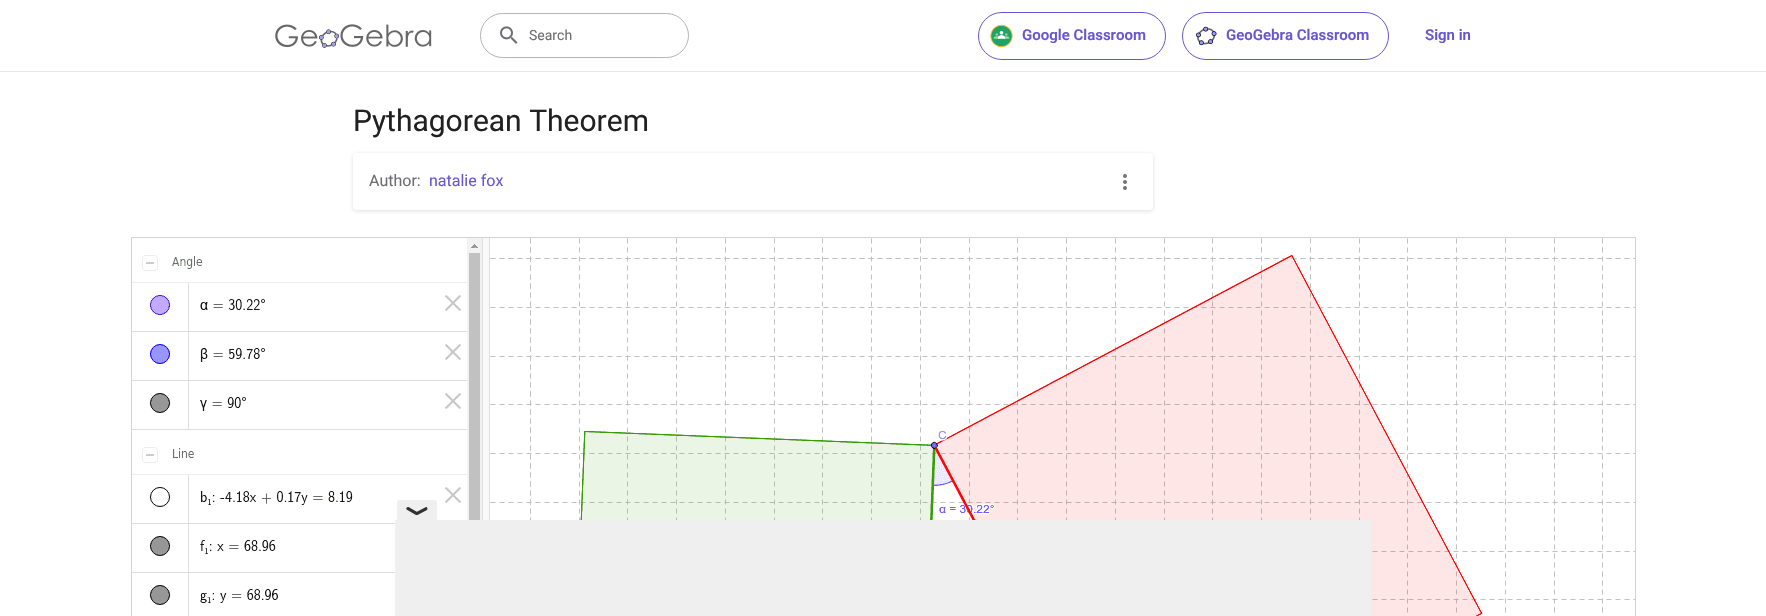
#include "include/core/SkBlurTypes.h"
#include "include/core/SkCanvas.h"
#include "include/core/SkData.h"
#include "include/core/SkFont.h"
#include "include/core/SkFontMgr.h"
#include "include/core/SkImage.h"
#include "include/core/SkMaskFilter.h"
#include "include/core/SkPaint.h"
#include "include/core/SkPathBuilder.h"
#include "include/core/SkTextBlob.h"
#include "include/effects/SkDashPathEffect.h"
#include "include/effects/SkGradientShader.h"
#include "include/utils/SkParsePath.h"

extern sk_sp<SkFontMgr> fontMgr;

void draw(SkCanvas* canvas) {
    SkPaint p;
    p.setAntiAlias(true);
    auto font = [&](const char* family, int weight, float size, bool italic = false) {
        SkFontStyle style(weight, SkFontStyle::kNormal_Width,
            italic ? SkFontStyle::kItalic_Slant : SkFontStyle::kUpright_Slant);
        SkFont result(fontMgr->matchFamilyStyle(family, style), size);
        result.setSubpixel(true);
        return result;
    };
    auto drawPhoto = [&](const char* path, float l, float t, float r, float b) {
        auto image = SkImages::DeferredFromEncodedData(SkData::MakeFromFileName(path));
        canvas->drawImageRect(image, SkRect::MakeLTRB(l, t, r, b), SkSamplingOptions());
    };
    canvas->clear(0xFFFFFFFF);
    p.setColor(0xFFE6E6EB);
    canvas->drawRect(SkRect::MakeLTRB(0, 71, 1766, 72), p);
    drawPhoto("media/1.png", 275, 24, 432, 48);
    p.setStyle(SkPaint::kStroke_Style);
    p.setStrokeWidth(1);
    p.setColor(0xFFB4B3BA);
    canvas->drawRoundRect(SkRect::MakeLTRB(480.5f, 13.5f, 688.5f, 57.5f), 22, 22, p);
    drawPhoto("media/2.png", 500, 26, 518, 44);
    auto font1 = font("Roboto", 400, 14);
    p.setStyle(SkPaint::kFill_Style);
    p.setColor(0xFF6E6D73);
    canvas->drawString("Search", 529, 40, font1, p);
    p.setStyle(SkPaint::kStroke_Style);
    p.setColor(0xFF6557D2);
    canvas->drawRoundRect(SkRect::MakeLTRB(978.5f, 12.5f, 1165.5f, 59.5f), 23.5f, 23.5f, p);
    drawPhoto("media/3.png", 990, 24, 1013, 48);
    auto font2 = font("Roboto", 600, 15);
    p.setStyle(SkPaint::kFill_Style);
    canvas->drawString("Google Classroom", 1022, 40, font2, p);
    p.setStyle(SkPaint::kStroke_Style);
    canvas->drawRoundRect(SkRect::MakeLTRB(1182.5f, 12.5f, 1388.5f, 59.5f), 23.5f, 23.5f, p);
    drawPhoto("media/4.png", 1196, 26, 1217, 46);
    p.setStyle(SkPaint::kFill_Style);
    canvas->drawString("GeoGebra Classroom", 1226, 40, font2, p);
    canvas->drawString("Sign in", 1425, 40, font2, p);
    auto font3 = font("Roboto", 400, 30);
    p.setColor(0xFF212121);
    canvas->drawString("Pythagorean Theorem", 353, 131, font3, p);
    p.setColor(0x241C1C1F);
    p.setMaskFilter(SkMaskFilter::MakeBlur(kNormal_SkBlurStyle, 2));
    canvas->drawRoundRect(SkRect::MakeLTRB(353, 154, 1153, 211), 4, 4, p);
    p.setMaskFilter(nullptr);
    p.setColor(0xFFFFFFFF);
    canvas->drawRoundRect(SkRect::MakeLTRB(353, 153, 1153, 210), 4, 4, p);
    auto font4 = font("Roboto", 400, 16);
    p.setColor(0xFF6E6D73);
    canvas->drawString("Author:", 369, 186, font4, p);
    p.setColor(0xFF6557D2);
    canvas->drawString("natalie fox", 429, 186, font4, p);
    drawPhoto("media/5.png", 1123, 174, 1127, 190);
    drawPhoto("media/6.png", 132, 238, 1635, 616);
    p.setStyle(SkPaint::kStroke_Style);
    p.setColor(0xFFD3D3D3);
    canvas->drawRect(SkRect::MakeLTRB(131.5f, 237.5f, 1635.5f, 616.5f), p);
    p.setStyle(SkPaint::kFill_Style);
    p.setColor(0xFFEFEFEF);
    canvas->drawPath(SkPathBuilder().moveTo(399, 500).lineTo(435, 500).cubicTo(436, 500, 437, 501, 437, 502).lineTo(437, 520).lineTo(397, 520).lineTo(397, 502).cubicTo(397, 501, 398, 500, 399, 500).close().detach(), p);
    p.setColor(0xFF313131);
    canvas->drawPath(SkPathBuilder().moveTo(408.5f, 507).lineTo(418, 512.5f).cubicTo(418.5f, 514, 417, 515.5f, 416, 515).lineTo(406.5f, 509.5f).cubicTo(405.5f, 508, 407.5f, 506.5f, 408.5f, 507).close().detach(), p);
    canvas->drawPath(SkPathBuilder().moveTo(416.5f, 512).lineTo(426, 507).cubicTo(427.5f, 507, 428, 509, 427, 510).lineTo(417.5f, 515).cubicTo(416, 515, 415.5f, 513, 416.5f, 512).close().detach(), p);
    p.setColor(0xFFEFEFEF);
    canvas->drawRect(SkRect::MakeLTRB(395, 520, 1371, 616), p);
}
